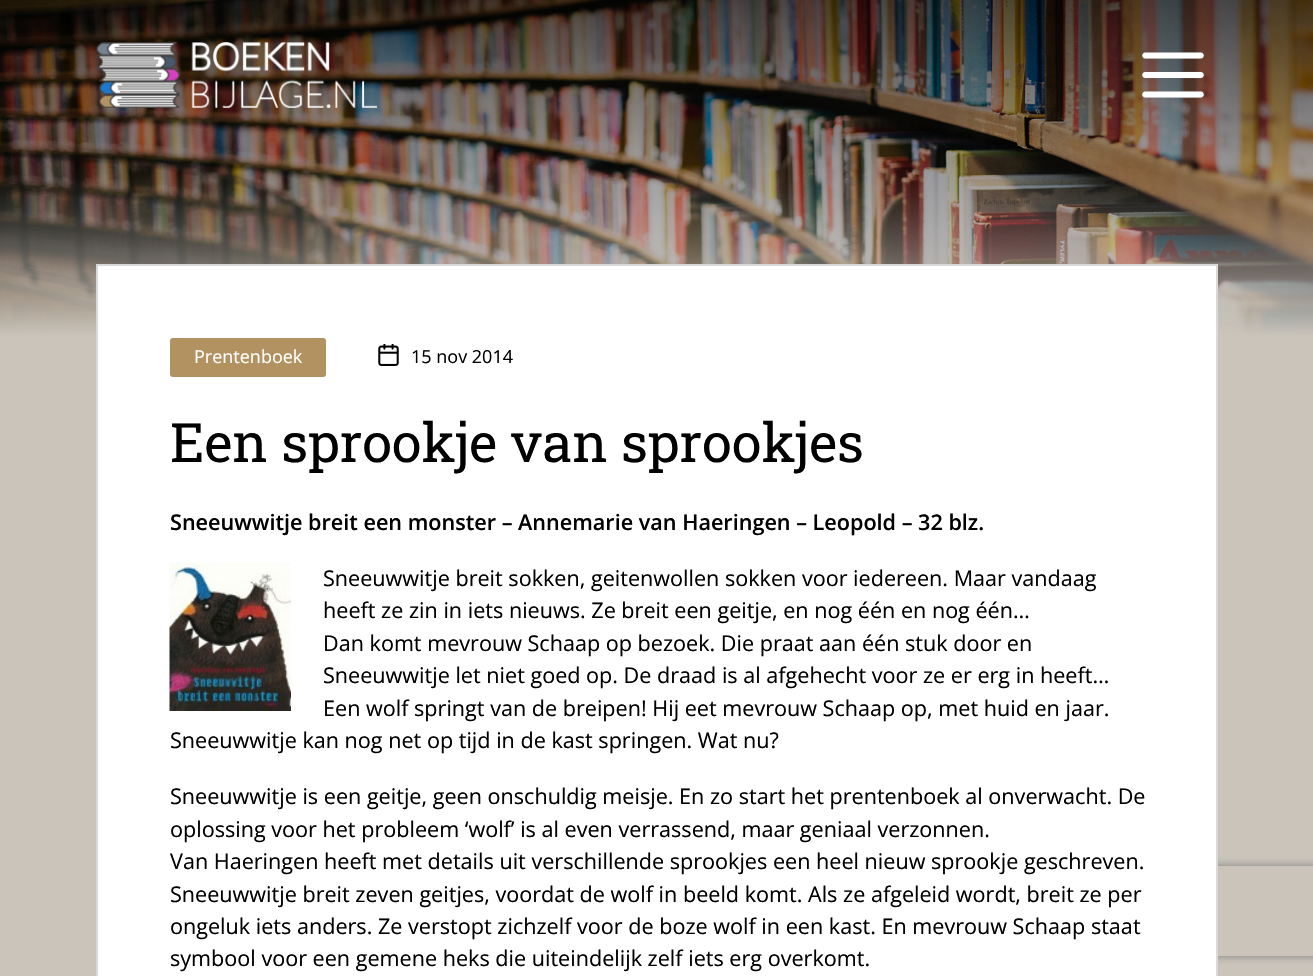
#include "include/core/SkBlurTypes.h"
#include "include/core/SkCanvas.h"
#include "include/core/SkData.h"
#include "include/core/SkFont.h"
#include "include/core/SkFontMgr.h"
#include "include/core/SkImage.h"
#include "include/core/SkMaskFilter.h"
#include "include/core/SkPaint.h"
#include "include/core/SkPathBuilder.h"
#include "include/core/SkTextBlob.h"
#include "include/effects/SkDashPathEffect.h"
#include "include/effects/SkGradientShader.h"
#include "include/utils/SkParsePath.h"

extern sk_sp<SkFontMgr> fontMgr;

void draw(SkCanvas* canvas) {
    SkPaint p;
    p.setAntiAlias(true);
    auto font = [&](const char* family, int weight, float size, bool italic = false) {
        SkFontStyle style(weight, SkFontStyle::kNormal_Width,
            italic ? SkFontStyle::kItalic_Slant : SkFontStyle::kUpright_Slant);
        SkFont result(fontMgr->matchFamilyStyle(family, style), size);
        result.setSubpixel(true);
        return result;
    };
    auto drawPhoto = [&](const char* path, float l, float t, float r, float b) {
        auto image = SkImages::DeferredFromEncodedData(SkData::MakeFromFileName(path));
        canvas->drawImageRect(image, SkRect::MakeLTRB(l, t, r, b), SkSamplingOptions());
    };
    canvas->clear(0xFFCAC4BB);
    drawPhoto("media/3.png", 0, 0, 1313, 336);
    drawPhoto("media/1.png", 96, 42, 377, 108);
    drawPhoto("media/2.png", 1142, 52, 1204, 98);
    canvas->save();
    canvas->clipPath(SkPathBuilder(SkPathFillType::kEvenOdd).moveTo(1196, 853).lineTo(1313, 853).lineTo(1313, 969).lineTo(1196, 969).close().moveTo(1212, 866).lineTo(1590, 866).cubicTo(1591.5f, 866, 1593, 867.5f, 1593, 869).lineTo(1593, 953).cubicTo(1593, 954.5f, 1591.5f, 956, 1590, 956).lineTo(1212, 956).cubicTo(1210.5f, 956, 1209, 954.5f, 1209, 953).lineTo(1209, 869).cubicTo(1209, 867.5f, 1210.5f, 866, 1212, 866).close().detach(), true);
    p.setColor(0xFF808080);
    p.setMaskFilter(SkMaskFilter::MakeBlur(kNormal_SkBlurStyle, 4));
    canvas->drawRoundRect(SkRect::MakeLTRB(1209, 866, 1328, 956), 3, 3, p);
    p.setMaskFilter(nullptr);
    canvas->restore();
    p.setColor(0xFFFFFFFF);
    canvas->drawRect(SkRect::MakeLTRB(97, 265, 1217, 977), p);
    p.setStyle(SkPaint::kStroke_Style);
    p.setStrokeWidth(2);
    p.setColor(0xFFD9D9D8);
    canvas->drawRect(SkRect::MakeLTRB(97, 265, 1217, 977), p);
    p.setStyle(SkPaint::kFill_Style);
    p.setColor(0xFFB19260);
    canvas->drawRoundRect(SkRect::MakeLTRB(170, 338, 326, 377), 3, 3, p);
    auto font1 = font("Open Sans", 400, 18);
    p.setColor(0xFFFFFFFF);
    canvas->drawString("Prentenboek", 194, 363, font1, p);
    drawPhoto("media/4.png", 378, 344, 399, 366);
    p.setColor(0xFF000000);
    canvas->drawString("15 nov 2014", 411, 363, font1, p);
    auto font2 = font("Roboto Slab", 400, 54);
    canvas->drawString("Een sprookje van sprookjes", 170, 462, font2, p);
    auto font3 = font("Open Sans", 600, 21.6f);
    canvas->drawString("Sneeuwwitje breit een monster – Annemarie van Haeringen – Leopold – 32 blz.", 170, 530, font3, p);
    drawPhoto("media/5.png", 169, 562, 291, 711);
    auto font4 = font("Open Sans", 400, 21.6f);
    {
        const struct { const char* s; float x, y; } items[] = {
            {"Sneeuwwitje breit sokken, geitenwollen sokken voor iedereen. Maar vandaag", 323, 586},
            {"heeft ze zin in iets nieuws. Ze breit een geitje, en nog één en nog één…", 323, 618},
            {"Dan komt mevrouw Schaap op bezoek. Die praat aan één stuk door en", 323, 651},
            {"Sneeuwwitje let niet goed op. De draad is al afgehecht voor ze er erg in heeft…", 323, 683},
            {"Een wolf springt van de breipen! Hij eet mevrouw Schaap op, met huid en jaar.", 323, 716},
            {"Sneeuwwitje kan nog net op tijd in de kast springen. Wat nu?", 170, 748},
            {"Sneeuwwitje is een geitje, geen onschuldig meisje. En zo start het prentenboek al onverwacht. De", 170, 804},
            {"oplossing voor het probleem ‘wolf’ is al even verrassend, maar geniaal verzonnen.", 170, 837},
            {"Van Haeringen heeft met details uit verschillende sprookjes een heel nieuw sprookje geschreven.", 170, 869},
            {"Sneeuwwitje breit zeven geitjes, voordat de wolf in beeld komt. Als ze afgeleid wordt, breit ze per", 170, 902},
            {"ongeluk iets anders. Ze verstopt zichzelf voor de boze wolf in een kast. En mevrouw Schaap staat", 170, 934},
            {"symbool voor een gemene heks die uiteindelijk zelf iets erg overkomt.", 170, 966},
        };
        for (auto [s, x, y] : items) {
            canvas->drawString(s, x, y, font4, p);
        }
    }
}
